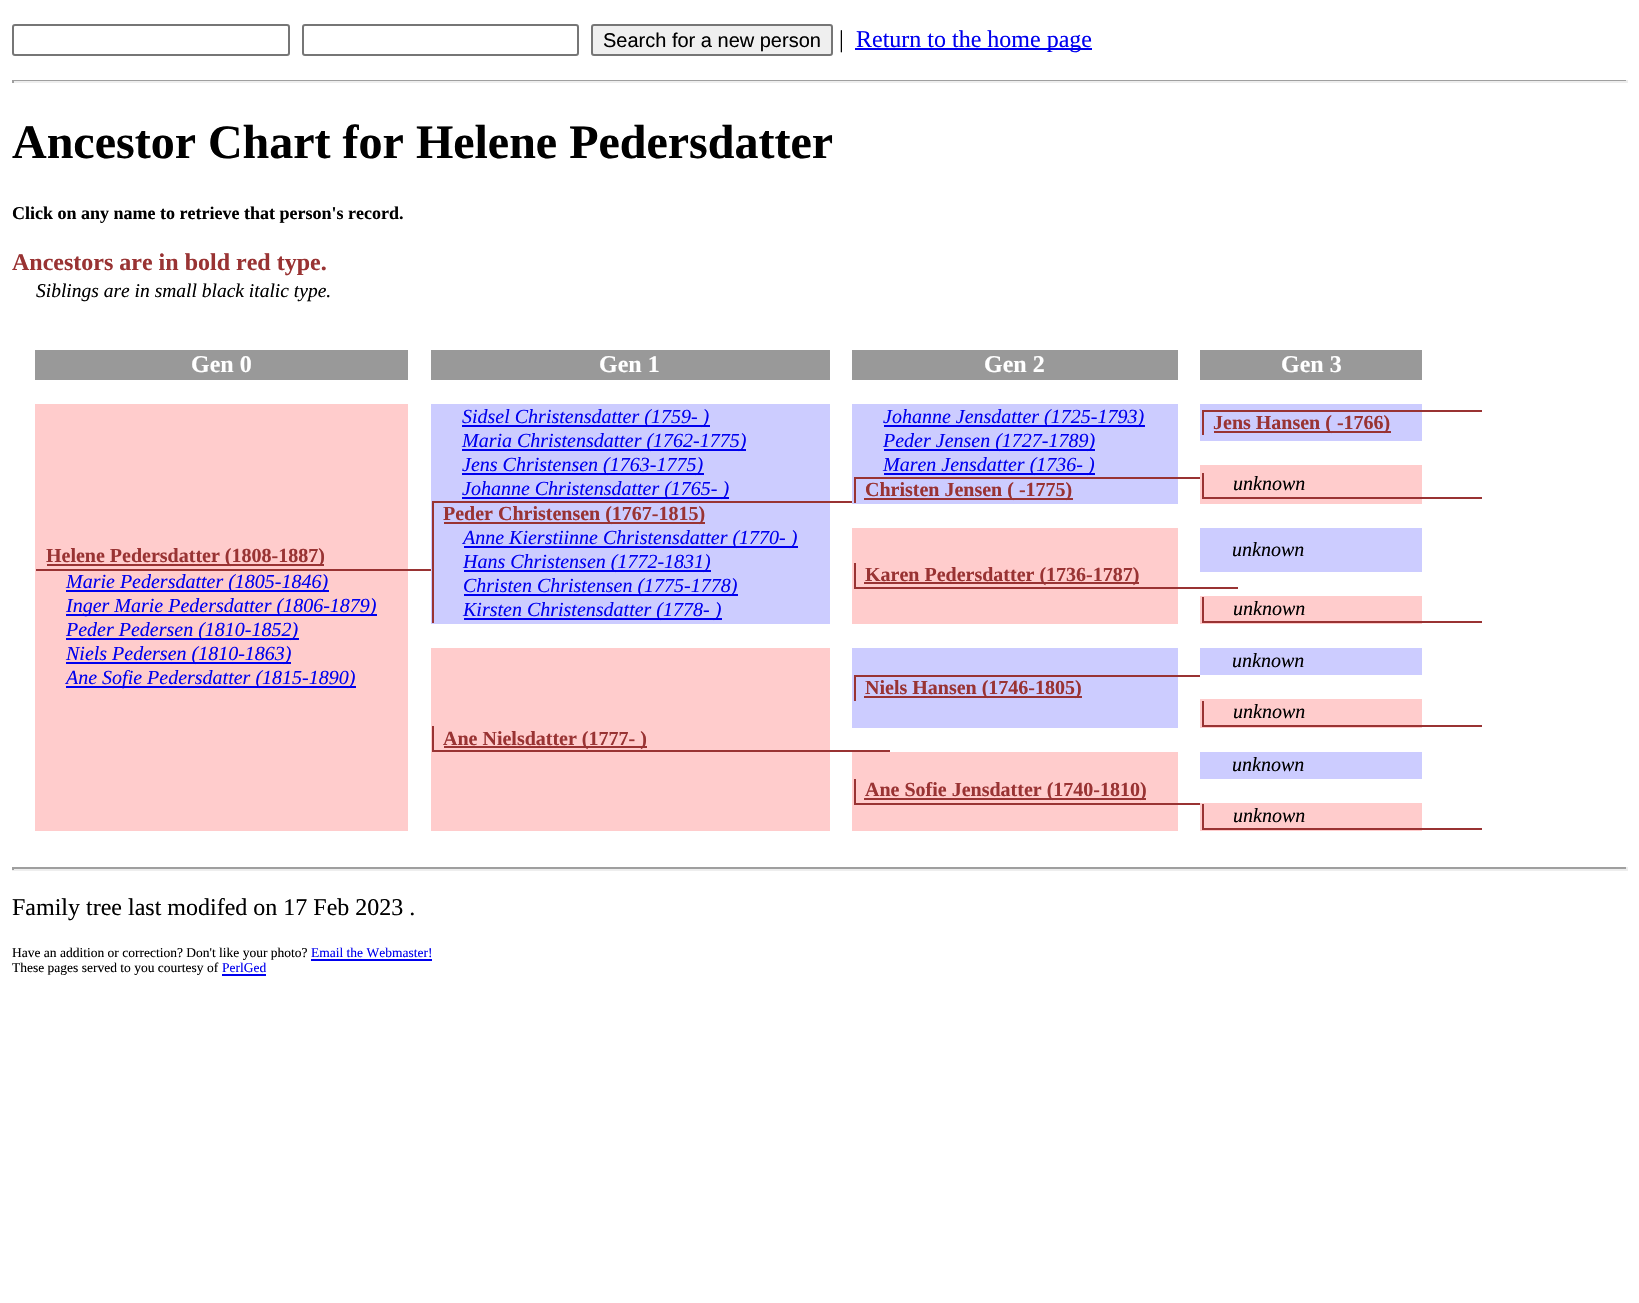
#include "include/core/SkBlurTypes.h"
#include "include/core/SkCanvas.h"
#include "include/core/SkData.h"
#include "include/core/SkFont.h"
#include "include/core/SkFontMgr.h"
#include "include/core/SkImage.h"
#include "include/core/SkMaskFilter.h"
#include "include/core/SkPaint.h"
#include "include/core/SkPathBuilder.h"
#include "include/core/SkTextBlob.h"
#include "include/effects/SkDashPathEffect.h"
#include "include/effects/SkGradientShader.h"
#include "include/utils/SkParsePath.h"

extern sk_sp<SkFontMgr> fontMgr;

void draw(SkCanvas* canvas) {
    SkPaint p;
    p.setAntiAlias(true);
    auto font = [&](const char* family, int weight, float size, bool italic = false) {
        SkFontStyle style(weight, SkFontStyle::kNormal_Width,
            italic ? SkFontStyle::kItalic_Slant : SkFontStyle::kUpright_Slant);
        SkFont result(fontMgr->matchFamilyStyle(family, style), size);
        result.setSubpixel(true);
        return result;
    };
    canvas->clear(0xFFFFFFFF);
    p.setStyle(SkPaint::kStroke_Style);
    p.setStrokeWidth(2);
    p.setColor(0xFF767676);
    canvas->drawRoundRect(SkRect::MakeLTRB(13, 25, 289, 55), 2, 2, p);
    canvas->drawRoundRect(SkRect::MakeLTRB(303, 25, 578, 55), 2, 2, p);
    p.setStyle(SkPaint::kFill_Style);
    p.setColor(0xFFEFEFEF);
    canvas->drawRoundRect(SkRect::MakeLTRB(592, 25, 832, 55), 2, 2, p);
    p.setStyle(SkPaint::kStroke_Style);
    p.setColor(0xFF767676);
    canvas->drawRoundRect(SkRect::MakeLTRB(592, 25, 832, 55), 2, 2, p);
    auto font1 = font("Liberation Sans", 400, 20);
    p.setStyle(SkPaint::kFill_Style);
    p.setColor(0xFF000000);
    canvas->drawString("Search for a new person", 603, 47, font1, p);
    auto font2 = font("Liberation Serif", 400, 24);
    canvas->drawString("|", 839, 47, font2, p);
    p.setColor(0xFF0000EE);
    canvas->drawRect(SkRect::MakeLTRB(855, 48, 1092, 50), p);
    canvas->drawString("Return to the home page", 856, 47, font2, p);
    {
        const struct { float l, t, r, b; SkColor color; } items[] = {
            {12, 80, 1628, 81, 0xFF9F9F9F},
            {1626, 80, 1628, 83, 0xFFEEEEEE},
            {12, 81, 1628, 83, 0xFFEEEEEE},
            {12, 80, 14, 83, 0xFF9F9F9F},
        };
        for (auto [l, t, r, b, color] : items) {
            p.setColor(color);
            canvas->drawRect(SkRect::MakeLTRB(l, t, r, b), p);
        }
    }
    auto font3 = font("Liberation Serif", 700, 48);
    p.setColor(0xFF000000);
    canvas->drawString("Ancestor Chart for Helene Pedersdatter", 12, 158, font3, p);
    auto font4 = font("Liberation Serif", 700, 18);
    canvas->drawString("Click on any name to retrieve that person's record.", 12, 219, font4, p);
    auto font5 = font("Liberation Serif", 700, 24);
    p.setColor(0xFF993333);
    canvas->drawString("Ancestors are in bold red type.", 12, 270, font5, p);
    auto font6 = font("Liberation Serif", 400, 19.5f, true);
    p.setColor(0xFF000000);
    canvas->drawString("Siblings are in small black italic type.", 36, 297, font6, p);
    p.setColor(0xFF999999);
    canvas->drawRect(SkRect::MakeLTRB(35, 350, 408, 380), p);
    p.setColor(0xFFFFFFFF);
    canvas->drawString("Gen 0", 191, 372, font5, p);
    p.setColor(0xFF999999);
    canvas->drawRect(SkRect::MakeLTRB(431, 350, 830, 380), p);
    p.setColor(0xFFFFFFFF);
    canvas->drawString("Gen 1", 599, 372, font5, p);
    p.setColor(0xFF999999);
    canvas->drawRect(SkRect::MakeLTRB(852, 350, 1178, 380), p);
    p.setColor(0xFFFFFFFF);
    canvas->drawString("Gen 2", 984, 372, font5, p);
    p.setColor(0xFF999999);
    canvas->drawRect(SkRect::MakeLTRB(1200, 350, 1422, 380), p);
    p.setColor(0xFFFFFFFF);
    canvas->drawString("Gen 3", 1281, 372, font5, p);
    p.setColor(0xFFCCCCFF);
    canvas->drawRect(SkRect::MakeLTRB(431, 404, 830, 624), p);
    p.setColor(0xFF0000EE);
    canvas->drawRect(SkRect::MakeLTRB(462, 425, 710, 427), p);
    auto font7 = font("Liberation Serif", 400, 20, true);
    canvas->drawString("Sidsel Christensdatter (1759- )", 462, 423, font7, p);
    canvas->drawRect(SkRect::MakeLTRB(462, 449, 746, 451), p);
    canvas->drawString("Maria Christensdatter (1762-1775)", 462, 447, font7, p);
    canvas->drawRect(SkRect::MakeLTRB(462, 473, 704, 475), p);
    canvas->drawString("Jens Christensen (1763-1775)", 462, 471, font7, p);
    canvas->drawRect(SkRect::MakeLTRB(462, 497, 729, 499), p);
    canvas->drawString("Johanne Christensdatter (1765- )", 462, 495, font7, p);
    {
        const struct { float l, t, r, b; SkColor color; } items[] = {
            {432, 501, 852, 503, 0xFF993333},
            {432, 501, 434, 623, 0xFF993333},
            {444, 522, 705, 524, 0xFF993333},
        };
        for (auto [l, t, r, b, color] : items) {
            p.setColor(color);
            canvas->drawRect(SkRect::MakeLTRB(l, t, r, b), p);
        }
    }
    auto font8 = font("Liberation Serif", 700, 20);
    canvas->drawString("Peder Christensen (1767-1815)", 443, 520, font8, p);
    p.setColor(0xFF0000EE);
    canvas->drawRect(SkRect::MakeLTRB(464, 546, 798, 548), p);
    canvas->drawString("Anne Kierstiinne Christensdatter (1770- )", 463, 544, font7, p);
    canvas->drawRect(SkRect::MakeLTRB(464, 570, 711, 572), p);
    canvas->drawString("Hans Christensen (1772-1831)", 463, 568, font7, p);
    canvas->drawRect(SkRect::MakeLTRB(464, 594, 738, 596), p);
    canvas->drawString("Christen Christensen (1775-1778)", 463, 592, font7, p);
    canvas->drawRect(SkRect::MakeLTRB(464, 618, 722, 620), p);
    canvas->drawString("Kirsten Christensdatter (1778- )", 463, 616, font7, p);
    p.setColor(0xFFCCCCFF);
    canvas->drawRect(SkRect::MakeLTRB(852, 404, 1178, 504), p);
    p.setColor(0xFF0000EE);
    canvas->drawRect(SkRect::MakeLTRB(884, 425, 1145, 427), p);
    canvas->drawString("Johanne Jensdatter (1725-1793)", 883, 423, font7, p);
    canvas->drawRect(SkRect::MakeLTRB(884, 449, 1095, 451), p);
    canvas->drawString("Peder Jensen (1727-1789)", 883, 447, font7, p);
    canvas->drawRect(SkRect::MakeLTRB(884, 473, 1095, 475), p);
    canvas->drawString("Maren Jensdatter (1736- )", 883, 471, font7, p);
    {
        const struct { float l, t, r, b; SkColor color; } items[] = {
            {854, 477, 1200, 479, 0xFF993333},
            {854, 477, 856, 503, 0xFF993333},
            {864, 498, 1073, 500, 0xFF993333},
        };
        for (auto [l, t, r, b, color] : items) {
            p.setColor(color);
            canvas->drawRect(SkRect::MakeLTRB(l, t, r, b), p);
        }
    }
    canvas->drawString("Christen Jensen ( -1775)", 865, 496, font8, p);
    {
        const struct { float l, t, r, b; SkColor color; } items[] = {
            {1200, 404, 1422, 441, 0xFFCCCCFF},
            {1202, 410, 1482, 412, 0xFF993333},
            {1202, 410, 1204, 435, 0xFF993333},
            {1214, 431, 1391, 433, 0xFF993333},
        };
        for (auto [l, t, r, b, color] : items) {
            p.setColor(color);
            canvas->drawRect(SkRect::MakeLTRB(l, t, r, b), p);
        }
    }
    canvas->drawString("Jens Hansen ( -1766)", 1213, 429, font8, p);
    {
        const struct { float l, t, r, b; SkColor color; } items[] = {
            {35, 404, 408, 831, 0xFFFFCCCC},
            {36, 569, 431, 571, 0xFF993333},
            {47, 564, 324, 566, 0xFF993333},
        };
        for (auto [l, t, r, b, color] : items) {
            p.setColor(color);
            canvas->drawRect(SkRect::MakeLTRB(l, t, r, b), p);
        }
    }
    canvas->drawString("Helene Pedersdatter (1808-1887)", 46, 562, font8, p);
    p.setColor(0xFF0000EE);
    canvas->drawRect(SkRect::MakeLTRB(66, 590, 329, 592), p);
    canvas->drawString("Marie Pedersdatter (1805-1846)", 66, 588, font7, p);
    canvas->drawRect(SkRect::MakeLTRB(66, 614, 377, 616), p);
    canvas->drawString("Inger Marie Pedersdatter (1806-1879)", 66, 612, font7, p);
    canvas->drawRect(SkRect::MakeLTRB(66, 638, 299, 640), p);
    canvas->drawString("Peder Pedersen (1810-1852)", 66, 636, font7, p);
    canvas->drawRect(SkRect::MakeLTRB(66, 662, 291, 664), p);
    canvas->drawString("Niels Pedersen (1810-1863)", 66, 660, font7, p);
    canvas->drawRect(SkRect::MakeLTRB(66, 686, 356, 688), p);
    canvas->drawString("Ane Sofie Pedersdatter (1815-1890)", 66, 684, font7, p);
    {
        const struct { float l, t, r, b; SkColor color; } items[] = {
            {1200, 465, 1422, 504, 0xFFFFCCCC},
            {1202, 497, 1482, 499, 0xFF993333},
            {1202, 473, 1204, 498, 0xFF993333},
        };
        for (auto [l, t, r, b, color] : items) {
            p.setColor(color);
            canvas->drawRect(SkRect::MakeLTRB(l, t, r, b), p);
        }
    }
    p.setColor(0xFF000000);
    canvas->drawString("unknown", 1233, 490, font7, p);
    p.setColor(0xFFCCCCFF);
    canvas->drawRect(SkRect::MakeLTRB(1200, 528, 1422, 572), p);
    p.setColor(0xFF000000);
    canvas->drawString("unknown", 1232, 556, font7, p);
    {
        const struct { float l, t, r, b; SkColor color; } items[] = {
            {852, 528, 1178, 624, 0xFFFFCCCC},
            {854, 587, 1238, 589, 0xFF993333},
            {854, 563, 856, 588, 0xFF993333},
            {864, 582, 1139, 584, 0xFF993333},
        };
        for (auto [l, t, r, b, color] : items) {
            p.setColor(color);
            canvas->drawRect(SkRect::MakeLTRB(l, t, r, b), p);
        }
    }
    canvas->drawString("Karen Pedersdatter (1736-1787)", 865, 581, font8, p);
    {
        const struct { float l, t, r, b; SkColor color; } items[] = {
            {1200, 596, 1422, 624, 0xFFFFCCCC},
            {1202, 621, 1482, 623, 0xFF993333},
            {1202, 597, 1204, 623, 0xFF993333},
        };
        for (auto [l, t, r, b, color] : items) {
            p.setColor(color);
            canvas->drawRect(SkRect::MakeLTRB(l, t, r, b), p);
        }
    }
    p.setColor(0xFF000000);
    canvas->drawString("unknown", 1233, 615, font7, p);
    p.setColor(0xFFCCCCFF);
    canvas->drawRect(SkRect::MakeLTRB(1200, 648, 1422, 675), p);
    p.setColor(0xFF000000);
    canvas->drawString("unknown", 1232, 667, font7, p);
    {
        const struct { float l, t, r, b; SkColor color; } items[] = {
            {852, 648, 1178, 728, 0xFFCCCCFF},
            {854, 675, 1200, 677, 0xFF993333},
            {854, 675, 856, 701, 0xFF993333},
            {864, 696, 1082, 698, 0xFF993333},
        };
        for (auto [l, t, r, b, color] : items) {
            p.setColor(color);
            canvas->drawRect(SkRect::MakeLTRB(l, t, r, b), p);
        }
    }
    canvas->drawString("Niels Hansen (1746-1805)", 865, 694, font8, p);
    {
        const struct { float l, t, r, b; SkColor color; } items[] = {
            {431, 648, 830, 831, 0xFFFFCCCC},
            {432, 750, 890, 752, 0xFF993333},
            {432, 726, 434, 752, 0xFF993333},
            {444, 746, 647, 748, 0xFF993333},
        };
        for (auto [l, t, r, b, color] : items) {
            p.setColor(color);
            canvas->drawRect(SkRect::MakeLTRB(l, t, r, b), p);
        }
    }
    canvas->drawString("Ane Nielsdatter (1777- )", 443, 745, font8, p);
    {
        const struct { float l, t, r, b; SkColor color; } items[] = {
            {1200, 699, 1422, 728, 0xFFFFCCCC},
            {1202, 725, 1482, 727, 0xFF993333},
            {1202, 701, 1204, 726, 0xFF993333},
        };
        for (auto [l, t, r, b, color] : items) {
            p.setColor(color);
            canvas->drawRect(SkRect::MakeLTRB(l, t, r, b), p);
        }
    }
    p.setColor(0xFF000000);
    canvas->drawString("unknown", 1233, 718, font7, p);
    p.setColor(0xFFCCCCFF);
    canvas->drawRect(SkRect::MakeLTRB(1200, 752, 1422, 779), p);
    p.setColor(0xFF000000);
    canvas->drawString("unknown", 1232, 771, font7, p);
    {
        const struct { float l, t, r, b; SkColor color; } items[] = {
            {852, 752, 1178, 831, 0xFFFFCCCC},
            {854, 803, 1200, 805, 0xFF993333},
            {854, 779, 856, 804, 0xFF993333},
            {864, 798, 1146, 800, 0xFF993333},
        };
        for (auto [l, t, r, b, color] : items) {
            p.setColor(color);
            canvas->drawRect(SkRect::MakeLTRB(l, t, r, b), p);
        }
    }
    canvas->drawString("Ane Sofie Jensdatter (1740-1810)", 865, 796, font8, p);
    {
        const struct { float l, t, r, b; SkColor color; } items[] = {
            {1200, 803, 1422, 831, 0xFFFFCCCC},
            {1202, 828, 1482, 830, 0xFF993333},
            {1202, 804, 1204, 830, 0xFF993333},
        };
        for (auto [l, t, r, b, color] : items) {
            p.setColor(color);
            canvas->drawRect(SkRect::MakeLTRB(l, t, r, b), p);
        }
    }
    p.setColor(0xFF000000);
    canvas->drawString("unknown", 1233, 822, font7, p);
    {
        const struct { float l, t, r, b; SkColor color; } items[] = {
            {12, 867, 1628, 869, 0xFF9F9F9F},
            {1626, 867, 1628, 870, 0xFFEEEEEE},
            {12, 869, 1628, 871, 0xFFEEEEEE},
            {12, 867, 14, 870, 0xFF9F9F9F},
        };
        for (auto [l, t, r, b, color] : items) {
            p.setColor(color);
            canvas->drawRect(SkRect::MakeLTRB(l, t, r, b), p);
        }
    }
    p.setColor(0xFF000000);
    canvas->drawString("Family tree last modifed on 17 Feb 2023 .", 12, 915, font2, p);
    auto font9 = font("Liberation Serif", 400, 13.5f);
    canvas->drawString("Have an addition or correction? Don't like your photo?", 12, 957, font9, p);
    p.setColor(0xFF0000EE);
    canvas->drawString("Email the Webmaster!", 311, 957, font9, p);
    canvas->drawRect(SkRect::MakeLTRB(311, 959, 432, 961), p);
    p.setColor(0xFF000000);
    canvas->drawString("These pages served to you courtesy of", 12, 972, font9, p);
    p.setColor(0xFF0000EE);
    canvas->drawString("PerlGed", 222, 972, font9, p);
    canvas->drawRect(SkRect::MakeLTRB(222, 974, 266, 976), p);
}
